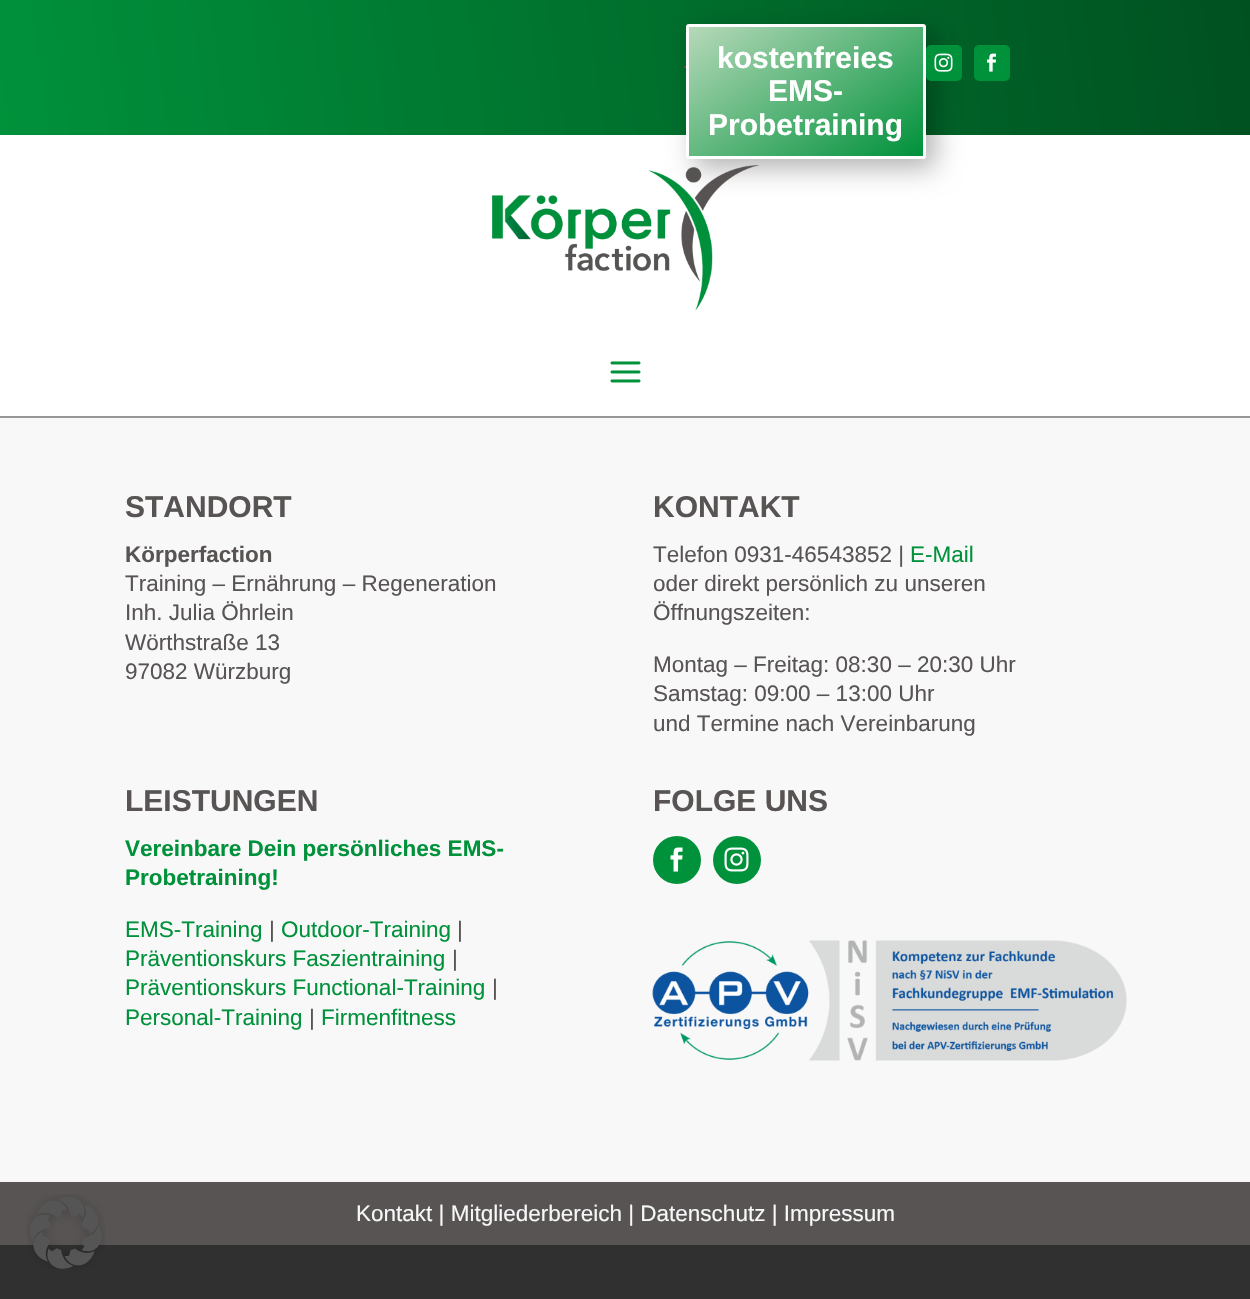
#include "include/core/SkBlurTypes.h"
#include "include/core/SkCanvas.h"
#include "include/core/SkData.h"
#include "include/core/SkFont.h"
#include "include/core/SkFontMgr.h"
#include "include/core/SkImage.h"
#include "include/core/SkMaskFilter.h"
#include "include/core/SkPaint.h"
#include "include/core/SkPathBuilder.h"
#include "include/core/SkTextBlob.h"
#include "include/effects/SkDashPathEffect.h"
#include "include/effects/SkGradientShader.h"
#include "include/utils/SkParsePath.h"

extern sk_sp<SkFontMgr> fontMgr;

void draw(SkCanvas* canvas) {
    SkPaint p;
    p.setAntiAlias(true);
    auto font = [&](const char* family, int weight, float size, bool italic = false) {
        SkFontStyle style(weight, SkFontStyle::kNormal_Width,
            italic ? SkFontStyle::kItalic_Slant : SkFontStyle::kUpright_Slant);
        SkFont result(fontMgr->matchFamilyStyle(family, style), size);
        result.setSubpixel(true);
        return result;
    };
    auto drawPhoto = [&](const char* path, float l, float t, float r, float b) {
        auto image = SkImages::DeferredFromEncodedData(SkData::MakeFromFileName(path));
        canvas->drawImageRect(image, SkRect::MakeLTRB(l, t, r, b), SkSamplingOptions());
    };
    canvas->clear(0xFF303030);
    p.setColor(0xFF585454);
    canvas->drawRect(SkRect::MakeLTRB(0, 1182, 1250, 1245), p);
    drawPhoto("media/1.png", 27, 1194, 105, 1269);
    {
        const SkColor colors[] = {0xFF00913B, 0xFF005120};
        const float stops[] = {0, 1};
        const SkPoint ends[] = {{2.8f, 155}, {1248, -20}};
        p.setShader(SkGradientShader::MakeLinear(ends, colors, stops, 2, SkTileMode::kClamp));
        p.setAlpha(255);
    }
    canvas->drawRect(SkRect::MakeLTRB(0, 0, 1250, 135), p);
    p.setShader(nullptr);
    p.setColor(0xFFFFFFFF);
    canvas->drawRect(SkRect::MakeLTRB(0, 135, 1250, 416), p);
    p.setColor(0x4D000000);
    p.setMaskFilter(SkMaskFilter::MakeBlur(kNormal_SkBlurStyle, 13.5f));
    canvas->drawRoundRect(SkRect::MakeLTRB(695, 33, 935, 168), 3, 3, p);
    p.setMaskFilter(nullptr);
    p.setColor(0xFF585454);
    canvas->drawRect(SkRect::MakeLTRB(684, 66, 686, 68), p);
    {
        const SkColor colors[] = {0xFFB6D9B9, 0xFF00913B};
        const float stops[] = {0, 1};
        const SkPoint ends[] = {{739, -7.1f}, {872, 190}};
        p.setShader(SkGradientShader::MakeLinear(ends, colors, stops, 2, SkTileMode::kClamp));
        p.setAlpha(255);
    }
    canvas->drawRect(SkRect::MakeLTRB(689, 27, 923, 156), p);
    p.setStyle(SkPaint::kStroke_Style);
    p.setStrokeWidth(3);
    p.setShader(nullptr);
    p.setColor(0xFFFFFFFF);
    canvas->drawRoundRect(SkRect::MakeLTRB(687.5f, 25.5f, 924.5f, 157.5f), 1.5f, 1.5f, p);
    auto font1 = font("Liberation Sans", 700, 30);
    p.setStyle(SkPaint::kFill_Style);
    {
        const struct { const char* s; float x, y; } items[] = {
            {"kostenfreies", 717, 68},
            {"EMS-", 768, 101},
            {"Probetraining", 708, 135},
        };
        for (auto [s, x, y] : items) {
            canvas->drawString(s, x, y, font1, p);
        }
    }
    p.setColor(0xFF00913B);
    canvas->drawRoundRect(SkRect::MakeLTRB(926, 45, 962, 81), 5, 5, p);
    drawPhoto("media/2.png", 934, 53, 953, 72);
    canvas->drawRoundRect(SkRect::MakeLTRB(974, 45, 1010, 81), 5, 5, p);
    drawPhoto("media/3.png", 987, 53, 996, 72);
    drawPhoto("media/4.png", 492, 165, 759, 311);
    drawPhoto("media/5.png", 610, 361, 641, 383);
    p.setColor(0xFFF8F8F8);
    canvas->drawRect(SkRect::MakeLTRB(0, 418, 1250, 1182), p);
    p.setColor(0xFF989696);
    canvas->drawRect(SkRect::MakeLTRB(0, 416, 1250, 418), p);
    p.setColor(0xFF585454);
    canvas->drawString("STANDORT", 125, 517, font1, p);
    auto font2 = font("Liberation Sans", 700, 22.5f);
    canvas->drawString("Körperfaction", 125, 562, font2, p);
    auto font3 = font("Liberation Sans", 400, 22.5f);
    {
        const struct { const char* s; float x, y; } items[] = {
            {"Training – Ernährung – Regeneration", 125, 591},
            {"Inh. Julia Öhrlein", 125, 620},
            {"Wörthstraße 13", 125, 650},
            {"97082 Würzburg", 125, 679},
        };
        for (auto [s, x, y] : items) {
            canvas->drawString(s, x, y, font3, p);
        }
    }
    canvas->drawString("KONTAKT", 653, 517, font1, p);
    canvas->drawString("Telefon 0931-46543852 |", 653, 562, font3, p);
    p.setColor(0xFF00913B);
    canvas->drawString("E-Mail", 910, 562, font3, p);
    p.setColor(0xFF585454);
    {
        const struct { const char* s; float x, y; } items[] = {
            {"oder direkt persönlich zu unseren", 653, 591},
            {"Öffnungszeiten:", 653, 620},
            {"Montag – Freitag: 08:30 – 20:30 Uhr", 653, 672},
            {"Samstag: 09:00 – 13:00 Uhr", 653, 701},
            {"und Termine nach Vereinbarung", 653, 731},
        };
        for (auto [s, x, y] : items) {
            canvas->drawString(s, x, y, font3, p);
        }
    }
    canvas->drawString("LEISTUNGEN", 125, 811, font1, p);
    p.setColor(0xFF00913B);
    canvas->drawString("Vereinbare Dein persönliches EMS-", 125, 856, font2, p);
    canvas->drawString("Probetraining!", 125, 885, font2, p);
    canvas->drawString("EMS-Training", 125, 937, font3, p);
    p.setColor(0xFF585454);
    canvas->drawString("|", 269, 937, font3, p);
    p.setColor(0xFF00913B);
    canvas->drawString("Outdoor-Training", 281, 937, font3, p);
    p.setColor(0xFF585454);
    canvas->drawString("|", 457, 937, font3, p);
    p.setColor(0xFF00913B);
    canvas->drawString("Präventionskurs Faszientraining", 125, 966, font3, p);
    p.setColor(0xFF585454);
    canvas->drawString("|", 452, 966, font3, p);
    p.setColor(0xFF00913B);
    canvas->drawString("Präventionskurs Functional-Training", 125, 995, font3, p);
    p.setColor(0xFF585454);
    canvas->drawString("|", 492, 995, font3, p);
    p.setColor(0xFF00913B);
    canvas->drawString("Personal-Training", 125, 1025, font3, p);
    p.setColor(0xFF585454);
    canvas->drawString("|", 309, 1025, font3, p);
    p.setColor(0xFF00913B);
    canvas->drawString("Firmenfitness", 321, 1025, font3, p);
    p.setColor(0xFF585454);
    canvas->drawString("FOLGE UNS", 653, 811, font1, p);
    p.setColor(0xFF00913B);
    canvas->drawCircle(677, 860, 24, p);
    drawPhoto("media/6.png", 670, 847, 683, 872);
    canvas->drawCircle(737, 860, 24, p);
    drawPhoto("media/7.png", 724, 847, 749, 872);
    drawPhoto("media/8.png", 652, 940, 1127, 1061);
    p.setColor(0xFFF8F8F8);
    canvas->drawString("Kontakt | Mitgliederbereich | Datenschutz | Impressum", 356, 1221, font3, p);
}
